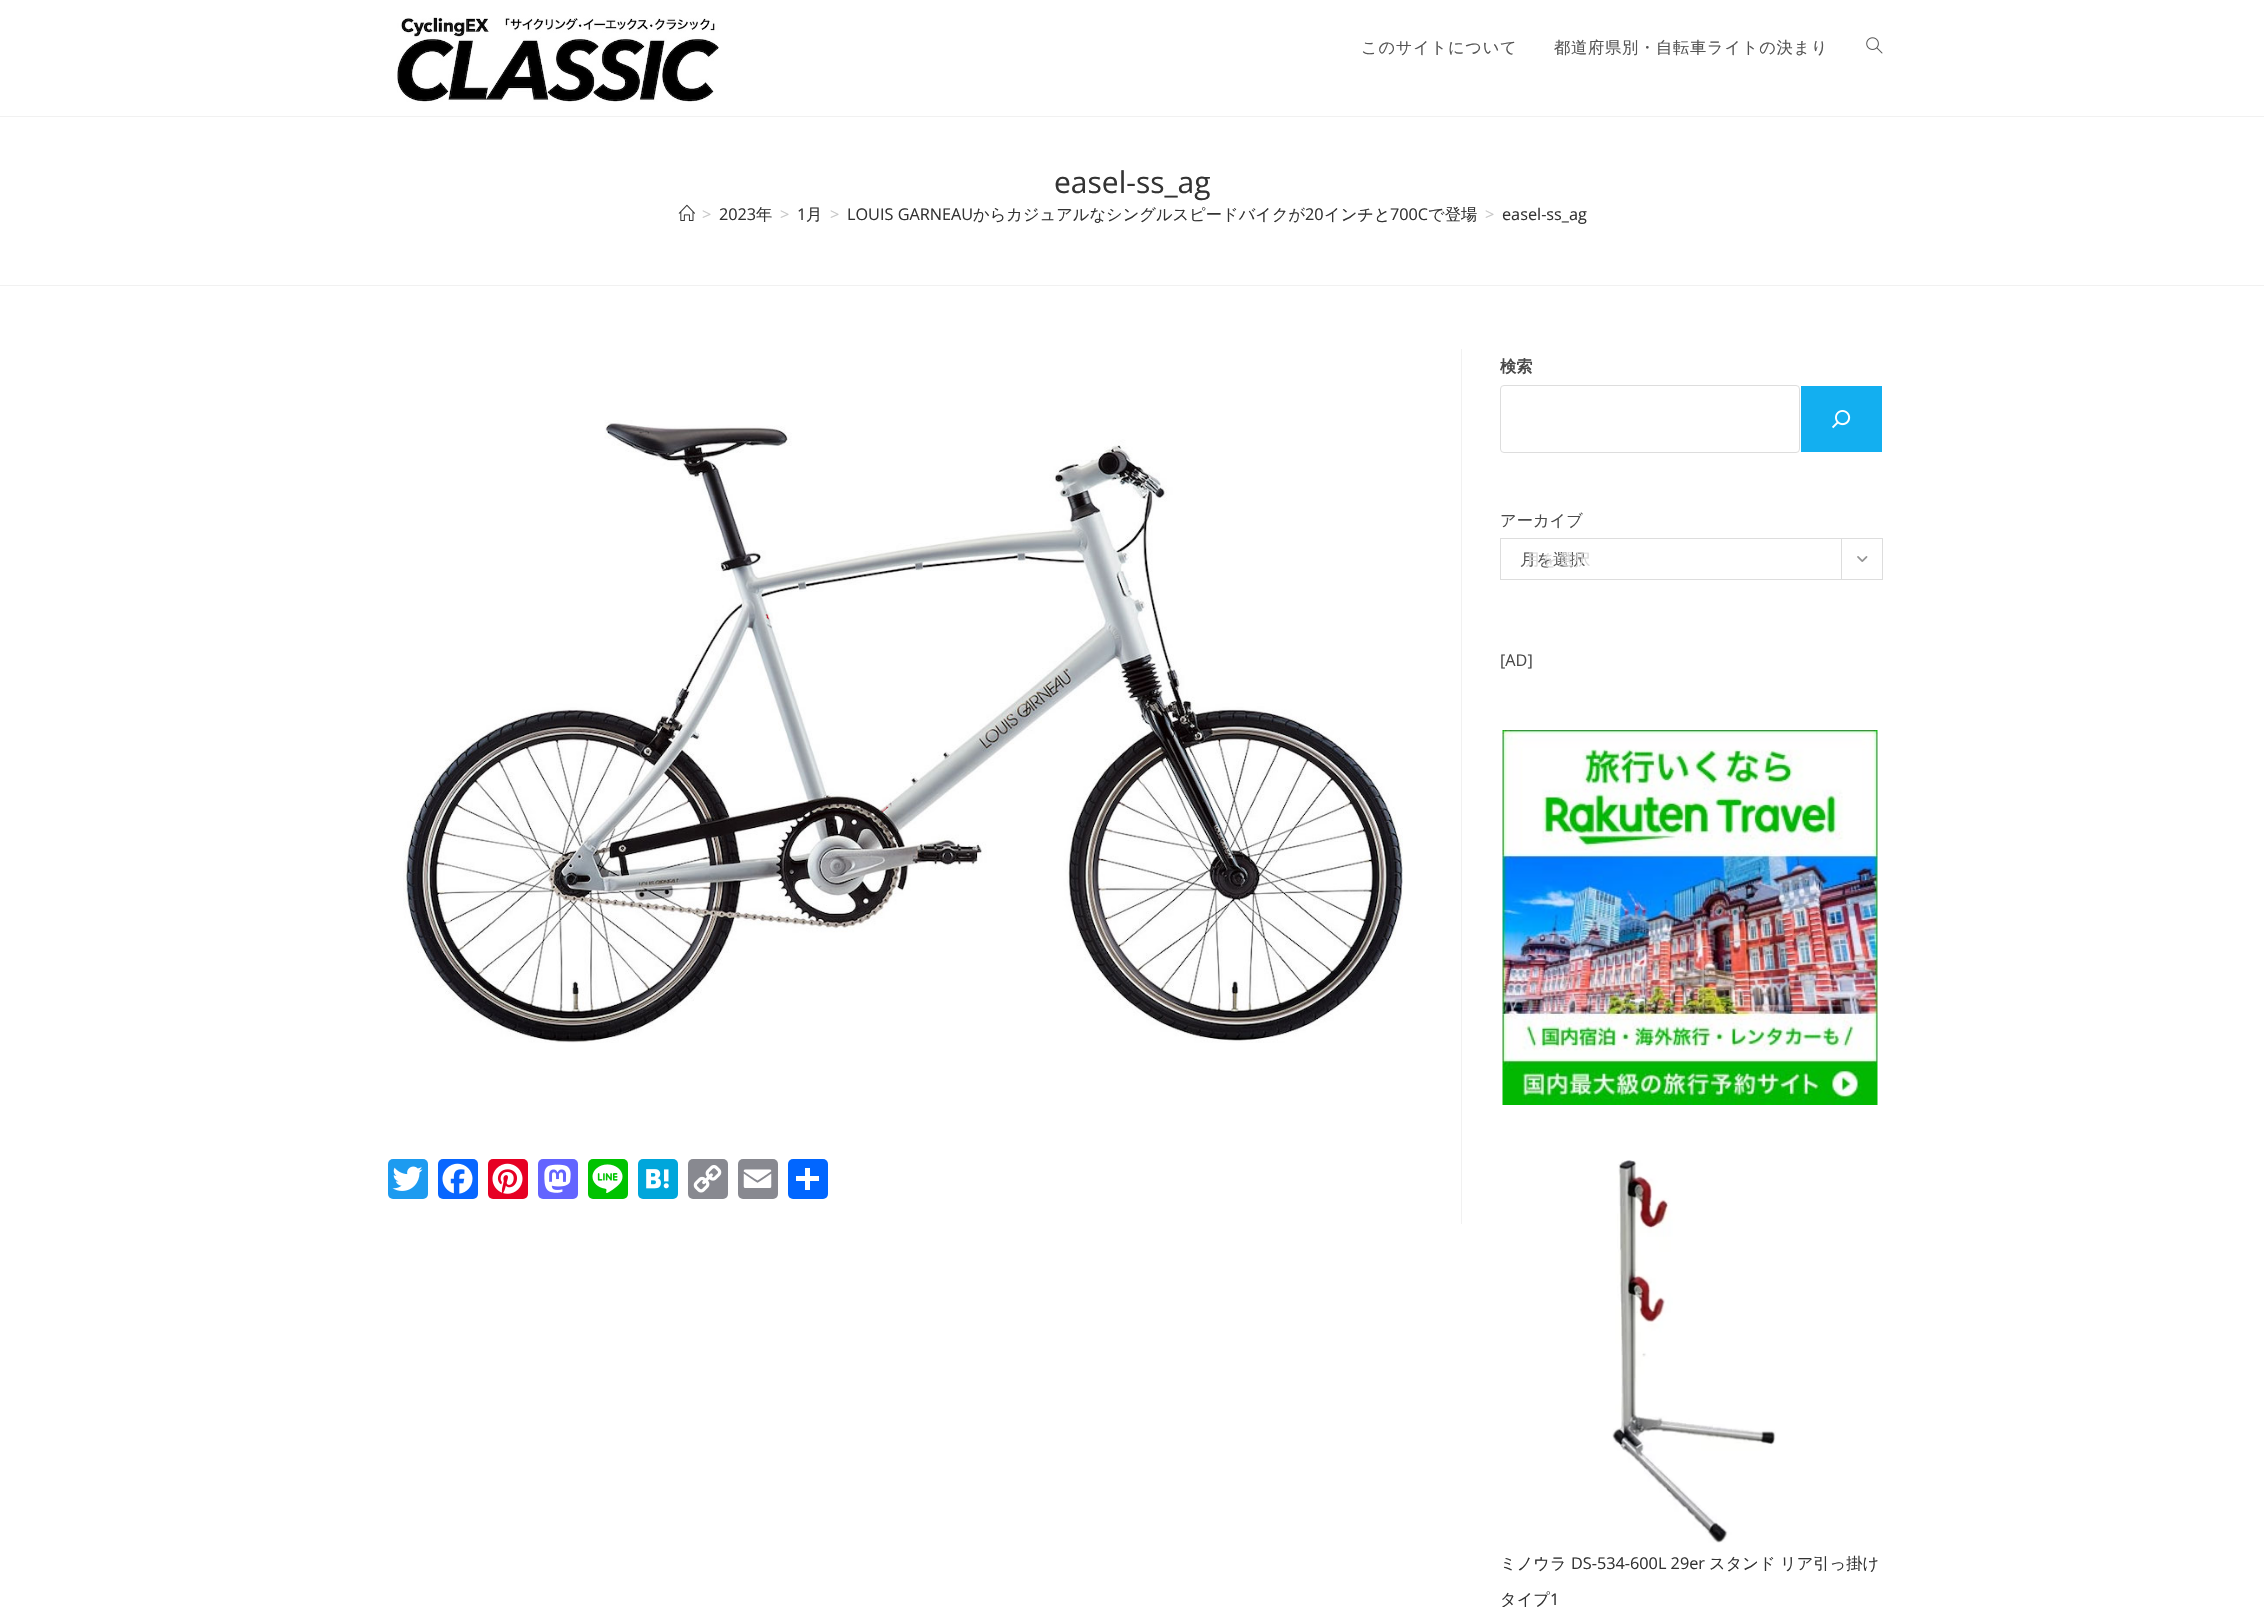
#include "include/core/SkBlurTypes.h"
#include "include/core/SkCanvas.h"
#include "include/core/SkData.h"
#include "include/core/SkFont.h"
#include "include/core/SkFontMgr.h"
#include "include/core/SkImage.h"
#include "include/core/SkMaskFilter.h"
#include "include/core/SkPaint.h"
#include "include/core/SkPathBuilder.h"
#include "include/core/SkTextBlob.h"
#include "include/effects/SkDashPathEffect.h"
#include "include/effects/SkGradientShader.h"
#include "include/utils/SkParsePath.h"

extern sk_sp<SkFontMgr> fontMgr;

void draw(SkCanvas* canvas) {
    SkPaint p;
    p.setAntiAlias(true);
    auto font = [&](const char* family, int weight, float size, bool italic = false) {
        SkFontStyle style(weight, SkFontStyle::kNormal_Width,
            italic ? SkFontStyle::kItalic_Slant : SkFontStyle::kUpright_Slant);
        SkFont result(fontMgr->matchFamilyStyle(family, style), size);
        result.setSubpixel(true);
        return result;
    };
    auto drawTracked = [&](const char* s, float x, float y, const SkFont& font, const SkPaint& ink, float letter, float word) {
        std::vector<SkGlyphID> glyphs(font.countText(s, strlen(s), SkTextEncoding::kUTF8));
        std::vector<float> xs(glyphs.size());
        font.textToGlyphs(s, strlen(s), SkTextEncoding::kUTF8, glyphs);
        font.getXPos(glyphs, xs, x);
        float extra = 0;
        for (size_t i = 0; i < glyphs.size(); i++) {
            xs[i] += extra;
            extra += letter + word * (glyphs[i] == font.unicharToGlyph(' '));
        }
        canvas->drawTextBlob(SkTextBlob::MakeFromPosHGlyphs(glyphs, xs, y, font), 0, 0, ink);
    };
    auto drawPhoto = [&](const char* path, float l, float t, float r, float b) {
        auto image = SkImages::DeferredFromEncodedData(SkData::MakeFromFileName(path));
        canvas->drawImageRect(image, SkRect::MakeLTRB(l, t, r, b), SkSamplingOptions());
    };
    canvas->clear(0xFFFFFFFF);
    p.setColor(0xFFF1F1F1);
    canvas->drawRect(SkRect::MakeLTRB(0, 116, 2264, 117), p);
    drawPhoto("media/1.png", 397, 17, 719, 102);
    auto font1 = font("WenQuanYi Zen Hei", 500, 16.25f);
    p.setColor(0xFF555555);
    drawTracked("このサイトについて", 1361, 53, font1, p, 0.75f, 0);
    drawTracked("都道府県別・自転車ライトの決まり", 1554, 53, font1, p, 0.75f, 0);
    drawPhoto("media/2.png", 1866, 37, 1883, 54);
    p.setColor(0xFFF1F1F1);
    canvas->drawRect(SkRect::MakeLTRB(0, 285, 2264, 286), p);
    auto font2 = font("Open Sans", 400, 30);
    p.setColor(0xFF333333);
    canvas->drawString("easel-ss_ag", 1054, 193, font2, p);
    drawPhoto("media/3.png", 678, 204, 695, 221);
    auto font3 = font("Open Sans", 400, 16.25f);
    p.setColor(0xFFC6C6C6);
    canvas->drawString(">", 702, 220, font3, p);
    p.setColor(0xFF333333);
    canvas->drawString("2023", 719, 220, font3, p);
    canvas->drawString("年", 756, 220, font1, p);
    p.setColor(0xFFC6C6C6);
    canvas->drawString(">", 780, 220, font3, p);
    p.setColor(0xFF333333);
    canvas->drawString("1", 797, 220, font3, p);
    canvas->drawString("月", 806, 220, font1, p);
    p.setColor(0xFFC6C6C6);
    canvas->drawString(">", 830, 220, font3, p);
    p.setColor(0xFF333333);
    canvas->drawString("LOUIS GARNEAU", 847, 220, font3, p);
    canvas->drawString("からカジュアルなシングルスピードバイクが", 973, 220, font1, p);
    canvas->drawString("20", 1305, 220, font3, p);
    canvas->drawString("インチと", 1324, 220, font1, p);
    canvas->drawString("700C", 1390, 220, font3, p);
    canvas->drawString("で登場", 1428, 220, font1, p);
    p.setColor(0xFFC6C6C6);
    canvas->drawString(">", 1485, 220, font3, p);
    p.setColor(0xFF333333);
    canvas->drawString("easel-ss_ag", 1502, 220, font3, p);
    p.setColor(0xFFF1F1F1);
    canvas->drawRect(SkRect::MakeLTRB(1461, 349, 1462, 1224), p);
    drawPhoto("media/4.png", 403, 420, 1403, 1043);
    p.setColor(0xFF1D9BF0);
    canvas->drawRoundRect(SkRect::MakeLTRB(388, 1159, 428, 1199), 5, 5, p);
    drawPhoto("media/5.png", 392, 1166, 423, 1191);
    p.setColor(0xFF0866FF);
    canvas->drawRoundRect(SkRect::MakeLTRB(438, 1159, 478, 1199), 5, 5, p);
    drawPhoto("media/6.png", 442, 1163, 473, 1194);
    p.setColor(0xFFE60023);
    canvas->drawRoundRect(SkRect::MakeLTRB(488, 1159, 528, 1199), 5, 5, p);
    drawPhoto("media/7.png", 492, 1163, 523, 1194);
    p.setColor(0xFF6364FF);
    canvas->drawRoundRect(SkRect::MakeLTRB(538, 1159, 578, 1199), 5, 5, p);
    drawPhoto("media/8.png", 544, 1164, 571, 1193);
    p.setColor(0xFF00C300);
    canvas->drawRoundRect(SkRect::MakeLTRB(588, 1159, 628, 1199), 5, 5, p);
    drawPhoto("media/9.png", 592, 1164, 623, 1193);
    p.setColor(0xFF00A6DB);
    canvas->drawRoundRect(SkRect::MakeLTRB(638, 1159, 678, 1199), 5, 5, p);
    drawPhoto("media/10.png", 646, 1169, 669, 1189);
    p.setColor(0xFF888990);
    canvas->drawRoundRect(SkRect::MakeLTRB(688, 1159, 728, 1199), 5, 5, p);
    drawPhoto("media/11.png", 693, 1165, 722, 1193);
    canvas->drawRoundRect(SkRect::MakeLTRB(738, 1159, 778, 1199), 5, 5, p);
    drawPhoto("media/12.png", 743, 1169, 772, 1188);
    p.setColor(0xFF0166FF);
    canvas->drawRoundRect(SkRect::MakeLTRB(788, 1159, 828, 1199), 5, 5, p);
    p.setColor(0xFFFFFFFF);
    canvas->drawRect(SkRect::MakeLTRB(805, 1168, 810, 1190), p);
    canvas->drawRect(SkRect::MakeLTRB(796, 1176, 819, 1181), p);
    auto font4 = font("WenQuanYi Zen Hei", 700, 16.25f);
    p.setColor(0xFF4A4A4A);
    canvas->drawString("検索", 1500, 372, font4, p);
    p.setStyle(SkPaint::kStroke_Style);
    p.setStrokeWidth(1);
    p.setColor(0xFFDDDDDD);
    canvas->drawRoundRect(SkRect::MakeLTRB(1500.5f, 385.5f, 1799.5f, 452.5f), 3.5f, 3.5f, p);
    p.setStyle(SkPaint::kFill_Style);
    p.setColor(0xFF13AFF0);
    canvas->drawRect(SkRect::MakeLTRB(1801, 386, 1882, 452), p);
    drawPhoto("media/13.png", 1832, 410, 1851, 429);
    p.setColor(0xFF4A4A4A);
    canvas->drawString("アーカイブ", 1500, 526, font1, p);
    p.setStyle(SkPaint::kStroke_Style);
    p.setColor(0xFFDDDDDD);
    canvas->drawRect(SkRect::MakeLTRB(1500.5f, 538.5f, 1882.5f, 579.5f), p);
    p.setStyle(SkPaint::kFill_Style);
    p.setColor(0xFF555555);
    canvas->drawString("月を選択", 1520, 565, font1, p);
    p.setColor(0xFFDDDDDD);
    canvas->drawRect(SkRect::MakeLTRB(1841, 539, 1842, 579), p);
    drawPhoto("media/14.png", 1857, 556, 1868, 562);
    p.setColor(0xFFD9D9D9);
    canvas->drawString("月を選択", 1525, 565, font1, p);
    p.setColor(0xFF4A4A4A);
    canvas->drawString("[AD]", 1500, 666, font3, p);
    drawPhoto("media/15.png", 1502, 730, 1878, 1105);
    drawPhoto("media/16.png", 1612, 1160, 1776, 1543);
    p.setColor(0xFF333333);
    canvas->drawString("ミノウラ", 1500, 1569, font1, p);
    canvas->drawString("DS-534-600L 29er", 1571, 1569, font3, p);
    {
        const struct { const char* s; float x, y; } items[] = {
            {"スタンド", 1709, 1569},
            {"リア引っ掛け", 1780, 1569},
            {"タイプ", 1500, 1605},
        };
        for (auto [s, x, y] : items) {
            canvas->drawString(s, x, y, font1, p);
        }
    }
    canvas->drawString("1", 1550, 1605, font3, p);
}
